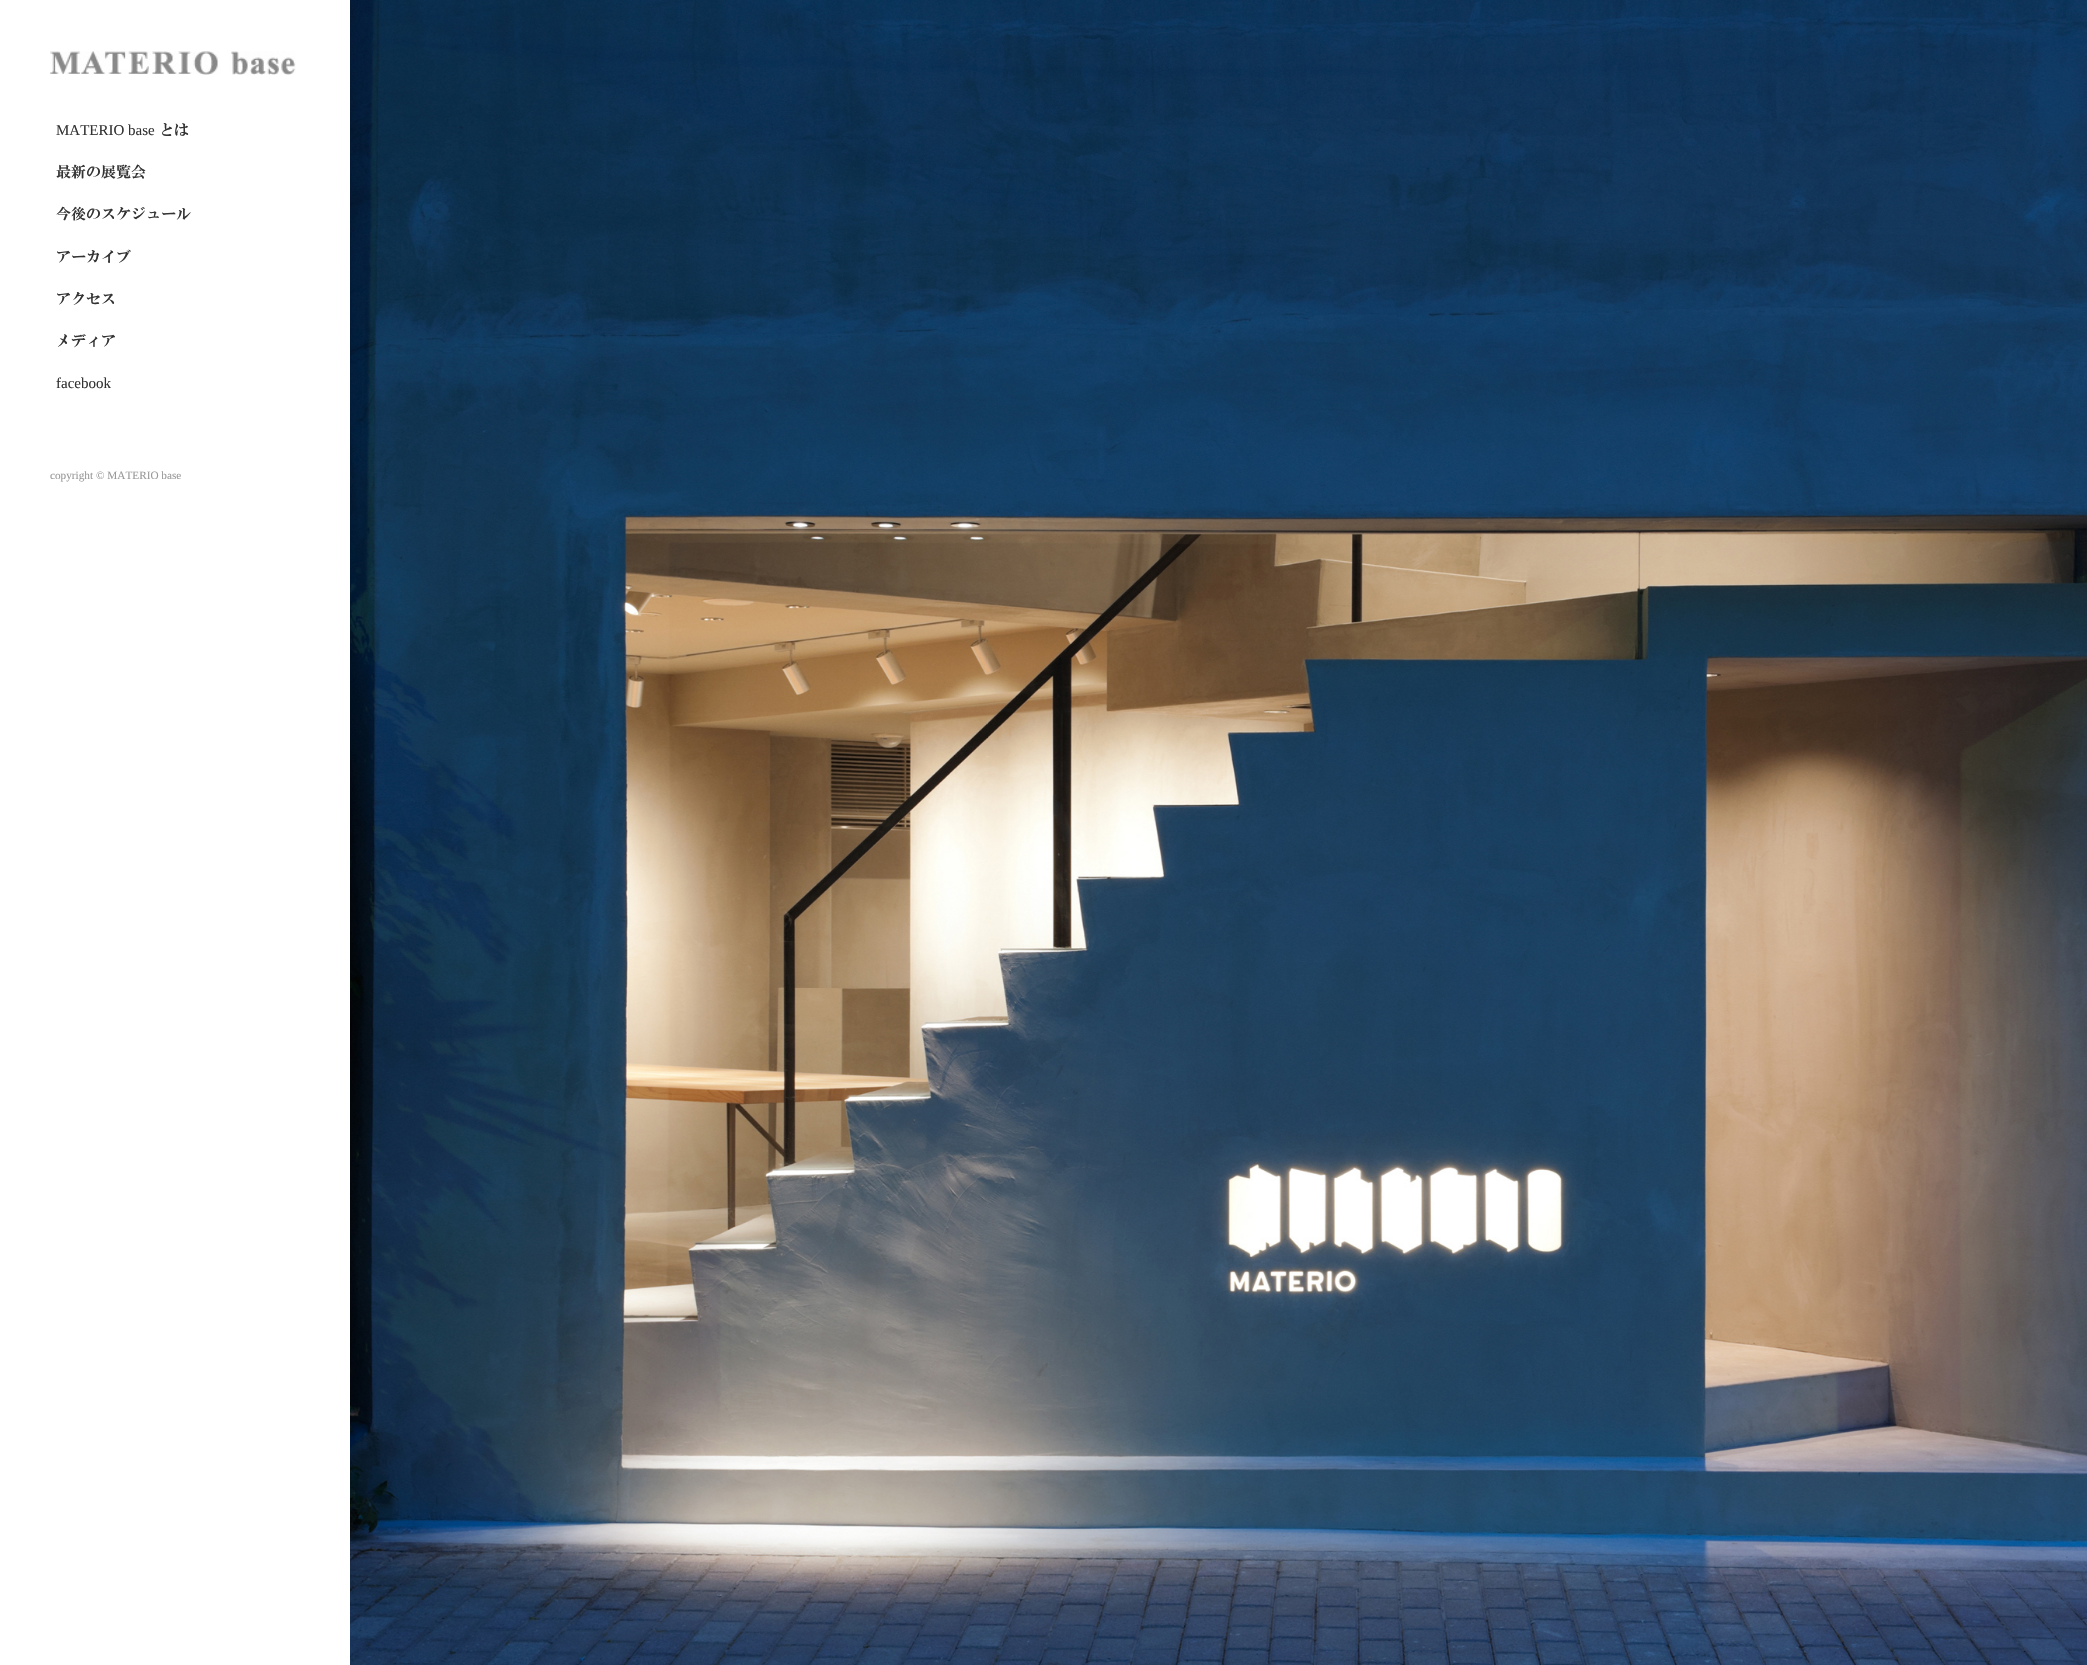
#include "include/core/SkBlurTypes.h"
#include "include/core/SkCanvas.h"
#include "include/core/SkData.h"
#include "include/core/SkFont.h"
#include "include/core/SkFontMgr.h"
#include "include/core/SkImage.h"
#include "include/core/SkMaskFilter.h"
#include "include/core/SkPaint.h"
#include "include/core/SkPathBuilder.h"
#include "include/core/SkTextBlob.h"
#include "include/effects/SkDashPathEffect.h"
#include "include/effects/SkGradientShader.h"
#include "include/utils/SkParsePath.h"

extern sk_sp<SkFontMgr> fontMgr;

void draw(SkCanvas* canvas) {
    SkPaint p;
    p.setAntiAlias(true);
    auto font = [&](const char* family, int weight, float size, bool italic = false) {
        SkFontStyle style(weight, SkFontStyle::kNormal_Width,
            italic ? SkFontStyle::kItalic_Slant : SkFontStyle::kUpright_Slant);
        SkFont result(fontMgr->matchFamilyStyle(family, style), size);
        result.setSubpixel(true);
        return result;
    };
    auto drawPhoto = [&](const char* path, float l, float t, float r, float b) {
        auto image = SkImages::DeferredFromEncodedData(SkData::MakeFromFileName(path));
        canvas->drawImageRect(image, SkRect::MakeLTRB(l, t, r, b), SkSamplingOptions());
    };
    canvas->clear(0xFFFFFFFF);
    drawPhoto("media/1.png", 50, 51, 296, 75);
    auto font1 = font("Liberation Serif", 400, 15);
    p.setColor(0xFF333333);
    canvas->drawString("MATERIO base", 56, 135, font1, p);
    auto font2 = font("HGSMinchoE", 400, 15);
    {
        const struct { const char* s; float x, y; } items[] = {
            {"とは", 159, 135},
            {"最新の展覧会", 56, 177},
            {"今後のスケジュール", 56, 219},
            {"アーカイブ", 56, 262},
            {"アクセス", 56, 304},
            {"メディア", 56, 346},
        };
        for (auto [s, x, y] : items) {
            canvas->drawString(s, x, y, font2, p);
        }
    }
    canvas->drawString("facebook", 56, 388, font1, p);
    auto font3 = font("Liberation Serif", 400, 11.25f);
    p.setColor(0xFF999999);
    canvas->drawString("copyright © MATERIO base", 50, 479, font3, p);
    drawPhoto("media/2.png", 350, 0, 2087, 1665);
}
